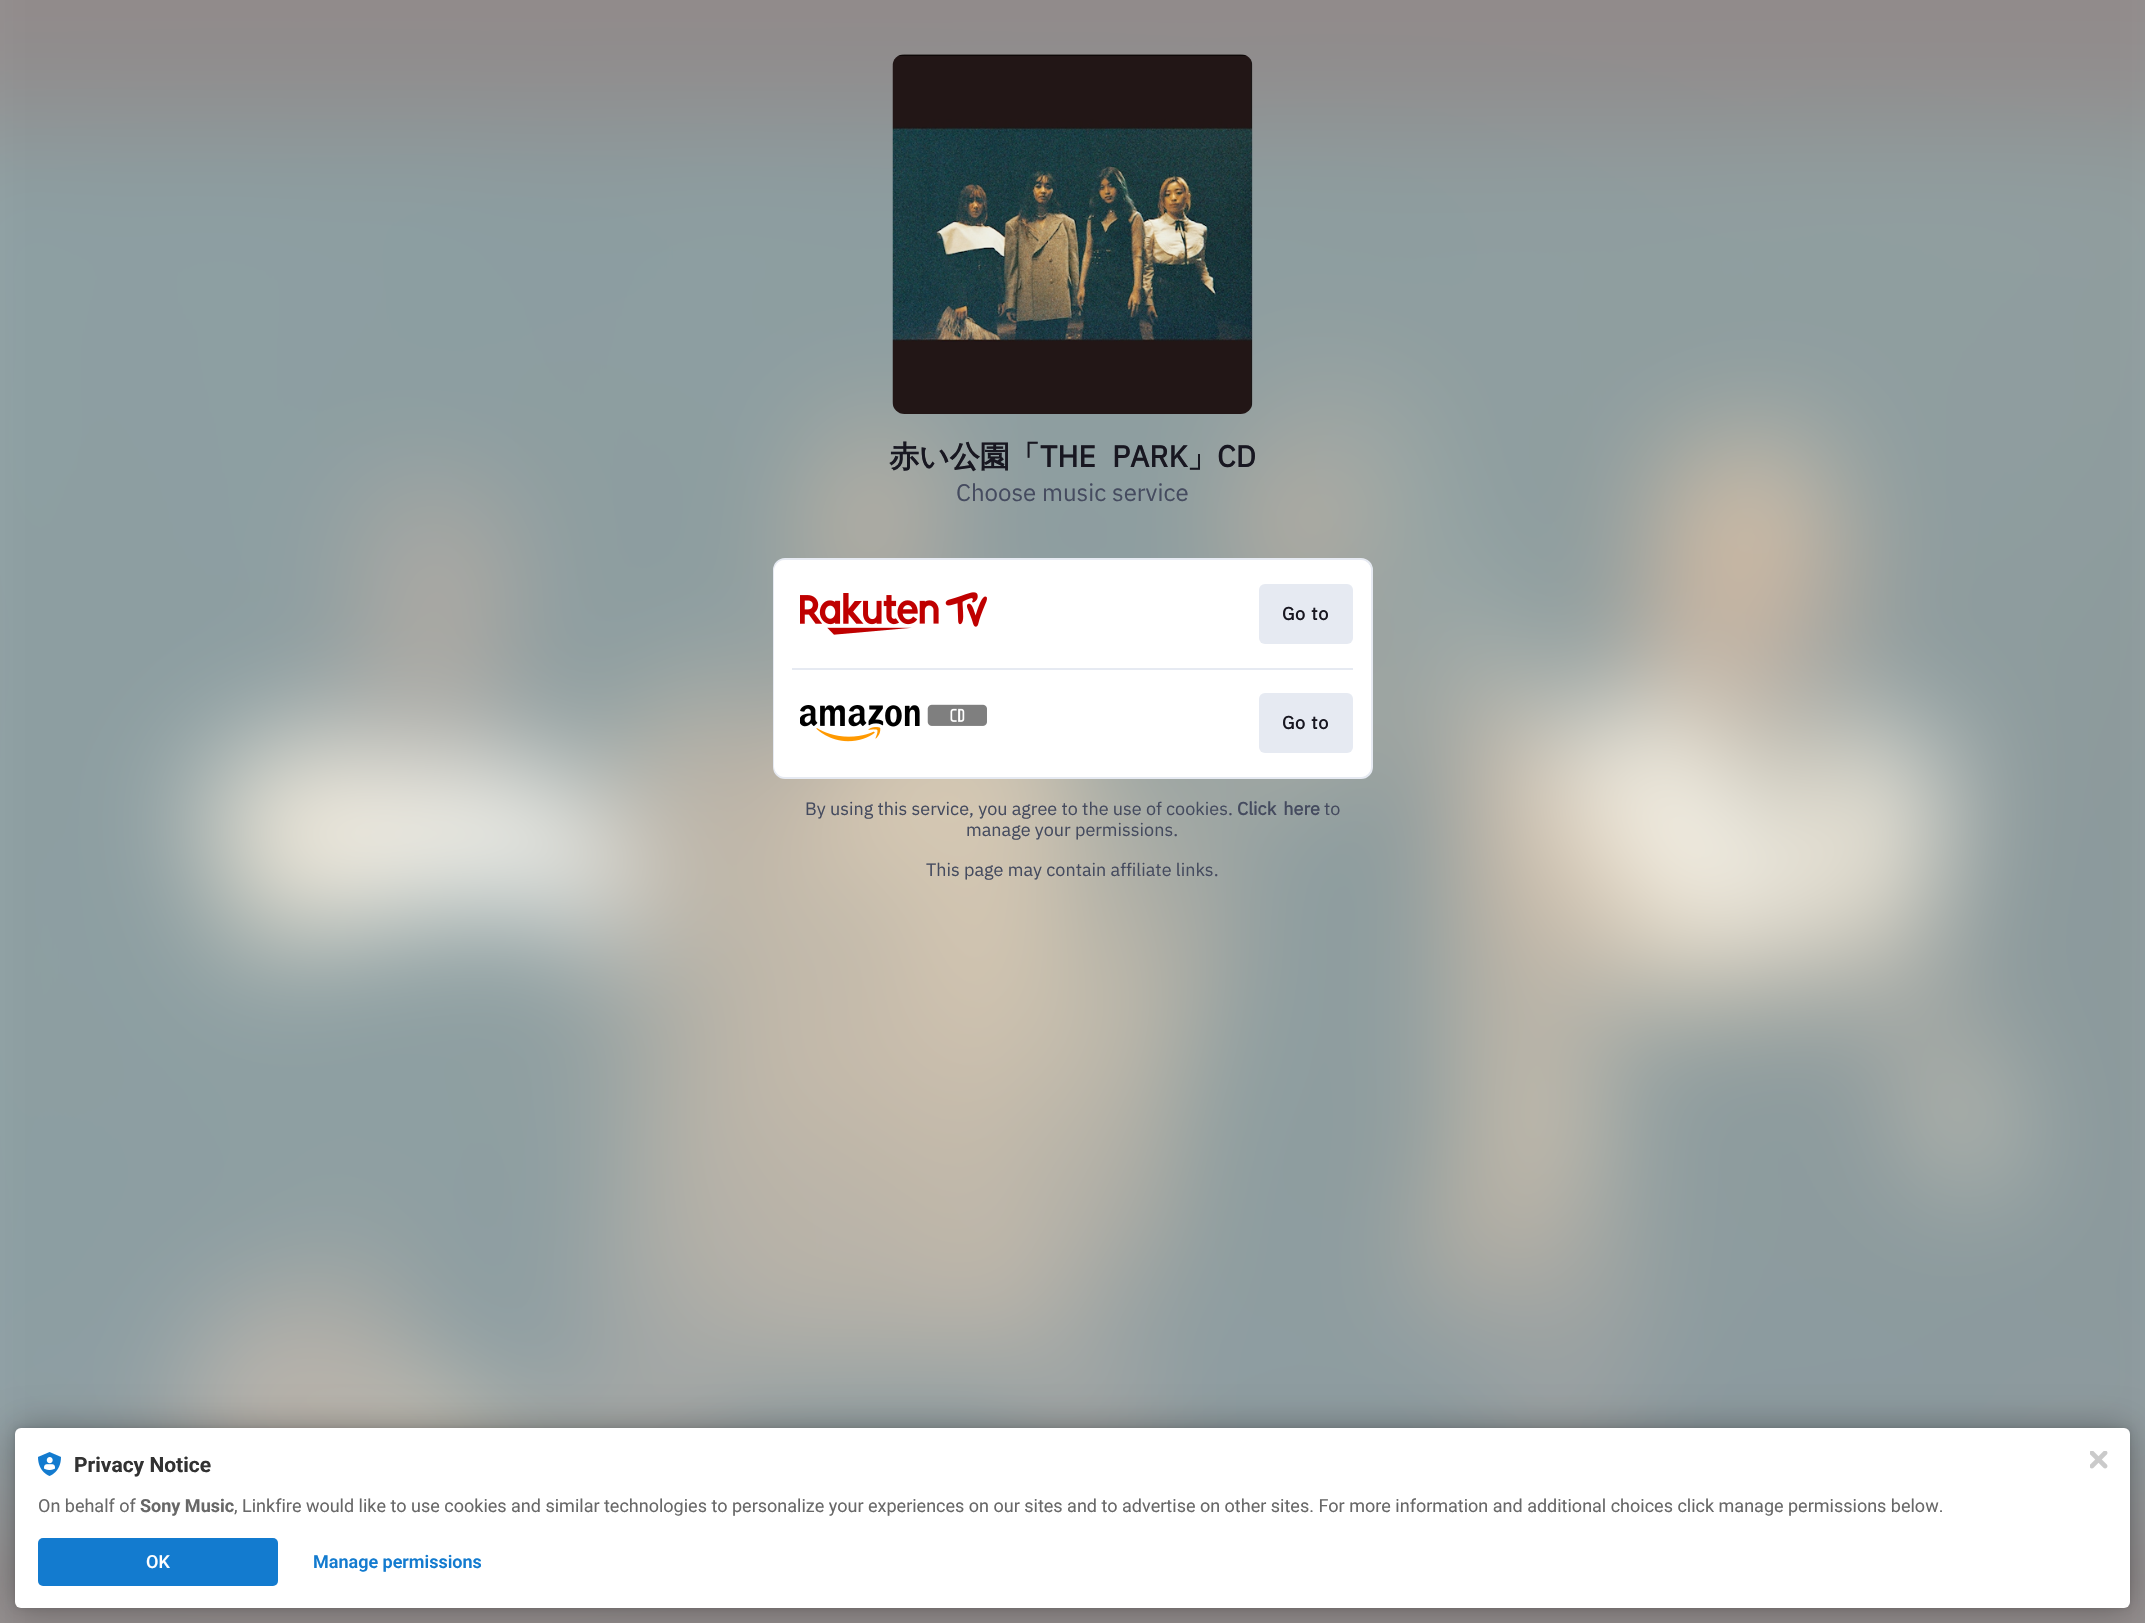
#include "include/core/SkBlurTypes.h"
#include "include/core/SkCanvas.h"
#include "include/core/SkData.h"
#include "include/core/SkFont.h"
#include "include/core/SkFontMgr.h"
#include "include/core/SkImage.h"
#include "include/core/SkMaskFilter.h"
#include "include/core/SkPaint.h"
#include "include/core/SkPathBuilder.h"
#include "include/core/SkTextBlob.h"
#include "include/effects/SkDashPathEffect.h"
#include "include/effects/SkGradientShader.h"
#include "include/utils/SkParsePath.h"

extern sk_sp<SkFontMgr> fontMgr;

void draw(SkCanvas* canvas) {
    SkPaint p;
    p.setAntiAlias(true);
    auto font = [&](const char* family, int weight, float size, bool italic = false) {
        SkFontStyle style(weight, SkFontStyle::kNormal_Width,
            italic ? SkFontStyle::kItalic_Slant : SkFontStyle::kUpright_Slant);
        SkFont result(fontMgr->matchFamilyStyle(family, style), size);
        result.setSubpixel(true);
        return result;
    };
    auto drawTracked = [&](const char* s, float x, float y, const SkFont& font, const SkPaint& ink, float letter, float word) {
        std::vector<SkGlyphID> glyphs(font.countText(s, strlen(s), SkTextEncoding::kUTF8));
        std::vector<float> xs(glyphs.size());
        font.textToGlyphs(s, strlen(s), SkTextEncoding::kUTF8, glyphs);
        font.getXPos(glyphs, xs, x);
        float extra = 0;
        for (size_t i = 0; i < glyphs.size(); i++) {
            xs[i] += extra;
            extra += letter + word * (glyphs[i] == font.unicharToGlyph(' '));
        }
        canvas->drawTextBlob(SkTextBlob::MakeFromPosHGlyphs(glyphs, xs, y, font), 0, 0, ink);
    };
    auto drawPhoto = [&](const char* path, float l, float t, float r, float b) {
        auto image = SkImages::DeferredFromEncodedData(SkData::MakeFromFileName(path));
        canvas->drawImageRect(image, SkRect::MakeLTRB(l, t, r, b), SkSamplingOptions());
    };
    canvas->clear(0xFFFFFFFF);
    drawPhoto("media/1.png", 0, 0, 2145, 1623);
    drawPhoto("media/2.png", 892, 54, 1253, 414);
    auto font1 = font("WenQuanYi Zen Hei", 700, 30);
    p.setColor(0xFF181721);
    canvas->drawString("赤い公園「", 889, 467, font1, p);
    auto font2 = font("IBM Plex Sans", 700, 30);
    drawTracked("THE PARK", 1040, 467, font2, p, 0, 9);
    canvas->drawString("」", 1187, 467, font1, p);
    canvas->drawString("CD", 1217, 467, font2, p);
    auto font3 = font("IBM Plex Sans", 400, 24);
    p.setColor(0xFF454B5F);
    canvas->drawString("Choose music service", 956, 501, font3, p);
    p.setColor(0xFFFFFFFF);
    canvas->drawRoundRect(SkRect::MakeLTRB(774, 559, 1372, 778), 11, 11, p);
    p.setStyle(SkPaint::kStroke_Style);
    p.setStrokeWidth(2);
    p.setColor(0xFFE6EAF2);
    canvas->drawRoundRect(SkRect::MakeLTRB(774, 559, 1372, 778), 11, 11, p);
    p.setStyle(SkPaint::kFill_Style);
    p.setColor(0xFFFFFFFF);
    canvas->drawRoundRect(SkRect::MakeLTRB(774, 560, 1371, 777), 11, 11, p);
    drawPhoto("media/3.png", 800, 592, 987, 635);
    p.setColor(0xFFE6EAF2);
    canvas->drawRoundRect(SkRect::MakeLTRB(1259, 584, 1353, 644), 6, 6, p);
    auto font4 = font("IBM Plex Sans", 700, 18);
    p.setColor(0xFF181721);
    drawTracked("Go to", 1282, 620, font4, p, 0.5f, 1);
    p.setColor(0xFFE6EAF2);
    canvas->drawRect(SkRect::MakeLTRB(792, 668, 1353, 670), p);
    drawPhoto("media/4.png", 800, 704, 987, 742);
    canvas->drawRoundRect(SkRect::MakeLTRB(1259, 693, 1353, 753), 6, 6, p);
    p.setColor(0xFF181721);
    drawTracked("Go to", 1282, 729, font4, p, 0.5f, 1);
    auto font5 = font("IBM Plex Sans", 400, 18);
    p.setColor(0xFF454B5F);
    canvas->drawString("By using this service, you agree to the use of cookies.", 805, 815, font5, p);
    drawTracked("Click here", 1237, 815, font4, p, 0, 3);
    {
        const struct { const char* s; float x, y; } items[] = {
            {"to", 1324, 815},
            {"manage your permissions.", 966, 836},
            {"This page may contain affiliate links.", 926, 876},
        };
        for (auto [s, x, y] : items) {
            canvas->drawString(s, x, y, font5, p);
        }
    }
    p.setColor(0x1F000000);
    p.setMaskFilter(SkMaskFilter::MakeBlur(kNormal_SkBlurStyle, 3));
    canvas->drawRoundRect(SkRect::MakeLTRB(15, 1428, 2130, 1608), 6, 6, p);
    p.setMaskFilter(nullptr);
    p.setColor(0x4D000000);
    p.setMaskFilter(SkMaskFilter::MakeBlur(kNormal_SkBlurStyle, 18));
    canvas->drawRoundRect(SkRect::MakeLTRB(15, 1428, 2130, 1608), 6, 6, p);
    p.setMaskFilter(nullptr);
    p.setColor(0xFFFFFFFF);
    canvas->drawRoundRect(SkRect::MakeLTRB(15, 1428, 2130, 1608), 6, 6, p);
    drawPhoto("media/5.png", 38, 1452, 61, 1476);
    auto font6 = font("Roboto", 700, 21);
    p.setColor(0xFF323232);
    canvas->drawString("Privacy Notice", 74, 1472, font6, p);
    auto font7 = font("Roboto", 400, 18);
    p.setColor(0xFF686868);
    canvas->drawString("On behalf of", 38, 1512, font7, p);
    auto font8 = font("Roboto", 700, 18);
    canvas->drawString("Sony Music", 140, 1512, font8, p);
    canvas->drawString(", Linkfire would like to use cookies and similar technologies to personalize your experiences on our sites and to advertise on other sites. For more information and additional choices click manage permissions below.", 234, 1512, font7, p);
    p.setColor(0xFF137BCF);
    canvas->drawRoundRect(SkRect::MakeLTRB(38, 1538, 278, 1586), 5, 5, p);
    auto font9 = font("Roboto", 500, 18);
    p.setColor(0xFFFFFFFF);
    canvas->drawString("OK", 146, 1568, font9, p);
    auto font10 = font("Roboto", 600, 18);
    p.setColor(0xFF137BCF);
    canvas->drawString("Manage permissions", 313, 1568, font10, p);
    drawPhoto("media/6.png", 2090, 1451, 2108, 1469);
}
